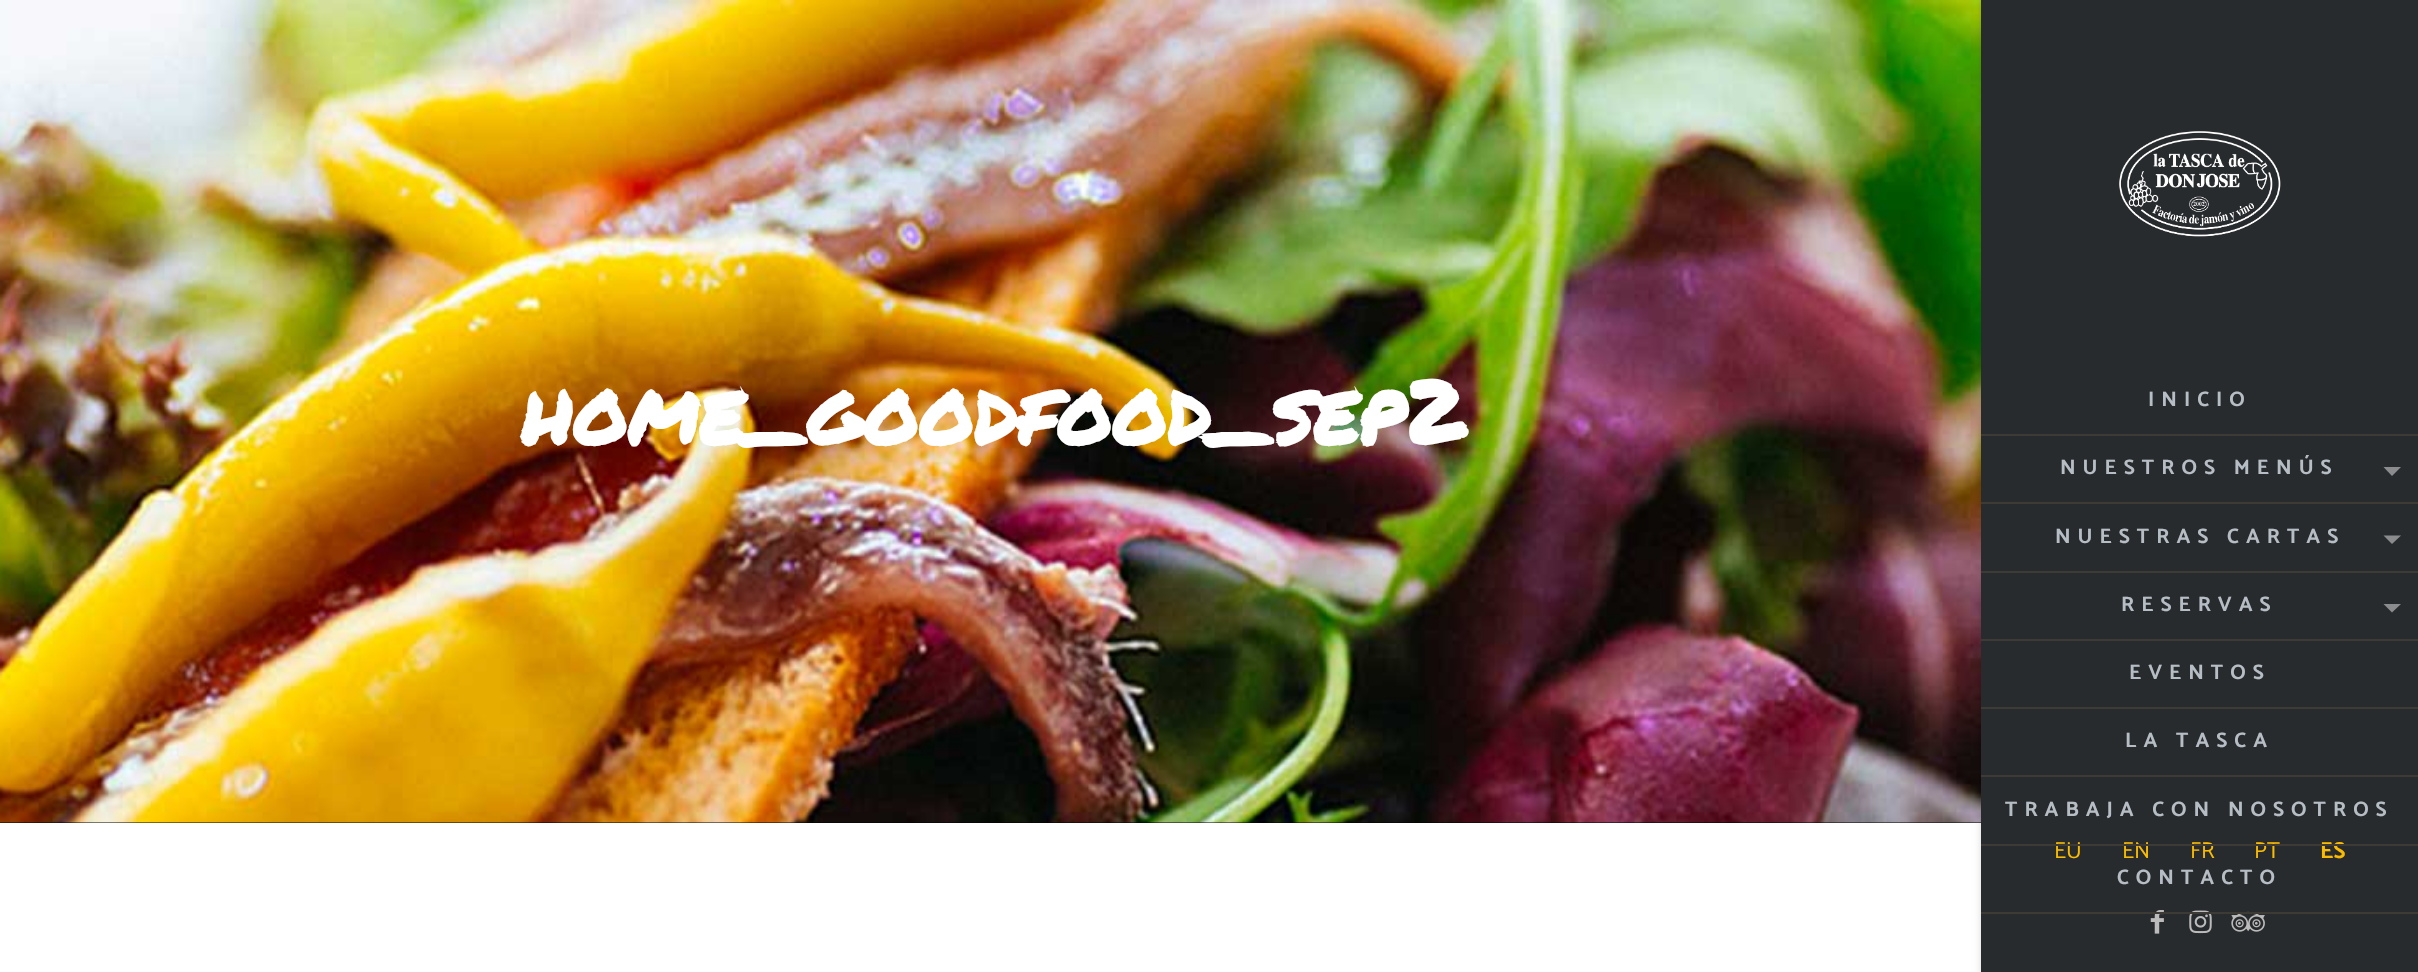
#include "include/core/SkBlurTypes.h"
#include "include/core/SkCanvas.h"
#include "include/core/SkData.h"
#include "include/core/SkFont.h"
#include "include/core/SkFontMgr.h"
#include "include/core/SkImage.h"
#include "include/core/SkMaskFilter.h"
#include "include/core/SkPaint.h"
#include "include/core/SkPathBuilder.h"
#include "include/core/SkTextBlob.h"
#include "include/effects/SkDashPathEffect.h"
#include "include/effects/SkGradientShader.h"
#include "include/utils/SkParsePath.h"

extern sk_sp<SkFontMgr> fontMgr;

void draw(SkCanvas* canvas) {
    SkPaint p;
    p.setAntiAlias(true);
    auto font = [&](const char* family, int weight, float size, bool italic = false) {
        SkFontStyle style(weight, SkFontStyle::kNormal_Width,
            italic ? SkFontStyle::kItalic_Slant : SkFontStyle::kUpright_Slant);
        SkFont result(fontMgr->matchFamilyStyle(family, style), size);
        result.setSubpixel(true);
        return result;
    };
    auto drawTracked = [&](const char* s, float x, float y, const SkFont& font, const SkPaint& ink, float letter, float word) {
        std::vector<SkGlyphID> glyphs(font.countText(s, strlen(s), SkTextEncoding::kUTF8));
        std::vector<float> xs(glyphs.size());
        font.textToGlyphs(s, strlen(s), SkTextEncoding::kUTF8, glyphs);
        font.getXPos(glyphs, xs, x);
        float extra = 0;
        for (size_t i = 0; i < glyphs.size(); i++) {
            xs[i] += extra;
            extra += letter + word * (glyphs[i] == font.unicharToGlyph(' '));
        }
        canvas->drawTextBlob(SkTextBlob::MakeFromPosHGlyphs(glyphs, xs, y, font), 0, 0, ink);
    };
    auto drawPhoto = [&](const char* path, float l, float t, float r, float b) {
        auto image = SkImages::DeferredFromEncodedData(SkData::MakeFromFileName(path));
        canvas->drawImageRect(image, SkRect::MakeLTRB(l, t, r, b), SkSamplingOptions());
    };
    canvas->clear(0xFFFFFFFF);
    p.setColor(0xFF020202);
    canvas->drawRect(SkRect::MakeLTRB(0, 822, 1981, 823), p);
    drawPhoto("media/1.png", 0, 0, 1981, 823);
    auto font1 = font("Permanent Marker", 700, 87.5f);
    p.setColor(0xFFFFFFFF);
    canvas->drawString("home_goodfood_sep2", 521, 445, font1, p);
    p.setColor(0x26000000);
    p.setMaskFilter(SkMaskFilter::MakeBlur(kNormal_SkBlurStyle, 3.5f));
    canvas->drawRect(SkRect::MakeLTRB(1981, -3, 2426, 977), p);
    p.setMaskFilter(nullptr);
    p.setColor(0xFF282B2E);
    canvas->drawRect(SkRect::MakeLTRB(1981, 0, 2418, 972), p);
    drawPhoto("media/2.png", 2119, 131, 2281, 237);
    p.setColor(0xFF3E3B36);
    canvas->drawRect(SkRect::MakeLTRB(1981, 434, 2418, 436), p);
    auto font2 = font("Catamaran", 700, 21);
    p.setColor(0xFFB6BDC4);
    drawTracked("INICIO", 2148, 406, font2, p, 7, 0);
    p.setColor(0xFF3E3B36);
    canvas->drawRect(SkRect::MakeLTRB(1981, 502, 2418, 504), p);
    p.setColor(0xFFB6BDC4);
    drawTracked("NUESTROS MENÚS", 2060, 474, font2, p, 7, 0);
    p.setColor(0xFF8A8C8D);
    canvas->drawPath(SkPathBuilder().moveTo(2383.5f, 467).lineTo(2401, 467).lineTo(2392, 476).close().detach(), p);
    p.setColor(0xFF3E3B36);
    canvas->drawRect(SkRect::MakeLTRB(1981, 571, 2418, 573), p);
    p.setColor(0xFFB6BDC4);
    drawTracked("NUESTRAS CARTAS", 2055, 543, font2, p, 7, 0);
    p.setColor(0xFF8A8C8D);
    canvas->drawPath(SkPathBuilder().moveTo(2383.5f, 535.5f).lineTo(2401, 535.5f).lineTo(2392, 544).close().detach(), p);
    p.setColor(0xFF3E3B36);
    canvas->drawRect(SkRect::MakeLTRB(1981, 639, 2418, 641), p);
    p.setColor(0xFFB6BDC4);
    drawTracked("RESERVAS", 2121, 611, font2, p, 7, 0);
    p.setColor(0xFF8A8C8D);
    canvas->drawPath(SkPathBuilder().moveTo(2383.5f, 604).lineTo(2401, 604).lineTo(2392, 612.5f).close().detach(), p);
    p.setColor(0xFF3E3B36);
    canvas->drawRect(SkRect::MakeLTRB(1981, 707, 2418, 709), p);
    p.setColor(0xFFB6BDC4);
    drawTracked("EVENTOS", 2129, 679, font2, p, 7, 0);
    p.setColor(0xFF3E3B36);
    canvas->drawRect(SkRect::MakeLTRB(1981, 775, 2418, 777), p);
    p.setColor(0xFFB6BDC4);
    drawTracked("LA TASCA", 2125, 747, font2, p, 7, 0);
    auto font3 = font("Catamaran", 400, 23);
    p.setColor(0xFFFBBB00);
    {
        const struct { const char* s; float x, y; } items[] = {
            {"EU", 2054, 858},
            {"EN", 2122, 858},
            {"FR", 2190, 858},
            {"PT", 2254, 858},
        };
        for (auto [s, x, y] : items) {
            canvas->drawString(s, x, y, font3, p);
        }
    }
    auto font4 = font("Catamaran", 700, 23);
    canvas->drawString("ES", 2320, 858, font4, p);
    p.setColor(0xFF3E3B36);
    canvas->drawRect(SkRect::MakeLTRB(1981, 844, 2418, 846), p);
    p.setColor(0xFFB6BDC4);
    drawTracked("TRABAJA CON NOSOTROS", 2005, 816, font2, p, 7, 0);
    drawPhoto("media/3.png", 2150, 910, 2164, 934);
    drawPhoto("media/4.png", 2189, 910, 2212, 934);
    drawPhoto("media/5.png", 2231, 911, 2265, 932);
    p.setColor(0xFF3E3B36);
    canvas->drawRect(SkRect::MakeLTRB(1981, 912, 2418, 914), p);
    p.setColor(0xFFB6BDC4);
    drawTracked("CONTACTO", 2117, 884, font2, p, 7, 0);
}
